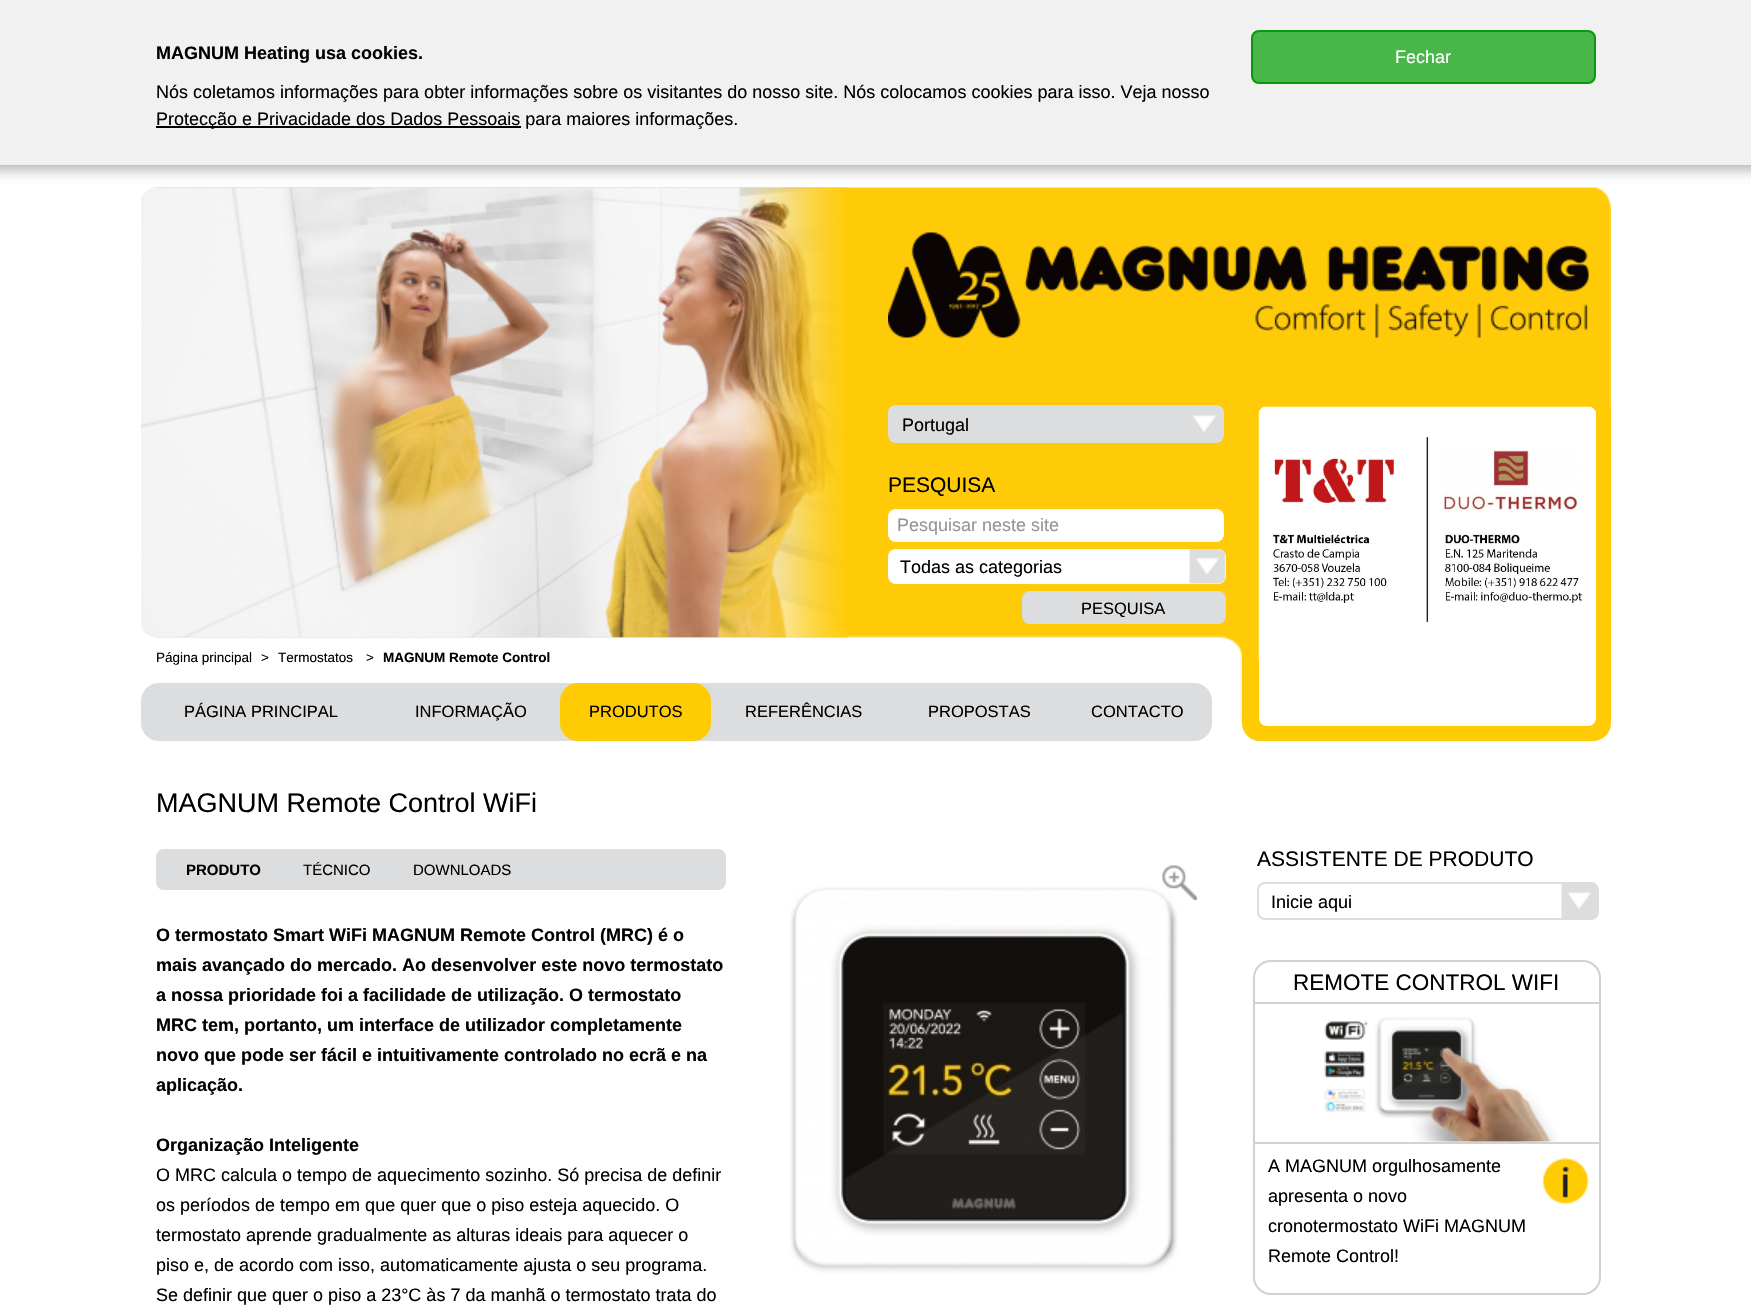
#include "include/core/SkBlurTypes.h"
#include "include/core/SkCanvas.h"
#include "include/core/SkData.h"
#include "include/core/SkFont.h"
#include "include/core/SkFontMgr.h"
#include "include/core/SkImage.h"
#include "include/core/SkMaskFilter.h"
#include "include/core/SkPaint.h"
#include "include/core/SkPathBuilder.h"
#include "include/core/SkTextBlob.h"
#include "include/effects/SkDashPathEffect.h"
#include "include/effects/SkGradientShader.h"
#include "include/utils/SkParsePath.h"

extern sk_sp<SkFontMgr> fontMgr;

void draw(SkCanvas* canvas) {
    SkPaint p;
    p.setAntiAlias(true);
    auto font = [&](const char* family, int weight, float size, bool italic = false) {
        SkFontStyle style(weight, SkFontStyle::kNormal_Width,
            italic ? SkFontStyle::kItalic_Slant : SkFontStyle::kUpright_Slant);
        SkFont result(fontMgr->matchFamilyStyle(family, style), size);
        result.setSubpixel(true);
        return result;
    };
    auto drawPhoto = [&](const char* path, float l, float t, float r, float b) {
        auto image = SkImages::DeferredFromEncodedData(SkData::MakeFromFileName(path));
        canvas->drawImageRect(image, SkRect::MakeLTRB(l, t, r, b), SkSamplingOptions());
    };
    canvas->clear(0xFFFFFFFF);
    drawPhoto("media/1.png", 141, 187, 1611, 741);
    drawPhoto("media/2.png", 141, 187, 846, 638);
    drawPhoto("media/3.png", 737, 187, 848, 638);
    p.setColor(0x80454545);
    p.setMaskFilter(SkMaskFilter::MakeBlur(kNormal_SkBlurStyle, 7.5f));
    canvas->drawRect(SkRect::MakeLTRB(-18, -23, 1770, 168), p);
    p.setMaskFilter(nullptr);
    p.setColor(0xFFF1F1F1);
    canvas->drawRect(SkRect::MakeLTRB(0, 0, 1751, 165), p);
    auto font1 = font("Liberation Sans", 700, 18);
    p.setColor(0xFF000000);
    canvas->drawString("MAGNUM Heating usa cookies.", 156, 59, font1, p);
    auto font2 = font("Liberation Sans", 400, 18);
    canvas->drawString("Nós coletamos informações para obter informações sobre os visitantes do nosso site. Nós colocamos cookies para isso. Veja nosso", 156, 98, font2, p);
    canvas->drawRect(SkRect::MakeLTRB(156, 126, 521, 128), p);
    canvas->drawString("Protecção e Privacidade dos Dados Pessoais para maiores informações.", 156, 125, font2, p);
    p.setColor(0xFF48B648);
    canvas->drawRoundRect(SkRect::MakeLTRB(1252, 31, 1595, 83), 7, 7, p);
    p.setStyle(SkPaint::kStroke_Style);
    p.setStrokeWidth(2);
    p.setColor(0xFF099909);
    canvas->drawRoundRect(SkRect::MakeLTRB(1252, 31, 1595, 83), 7, 7, p);
    p.setStyle(SkPaint::kFill_Style);
    p.setColor(0xFFFFFFFF);
    canvas->drawString("Fechar", 1395, 63, font2, p);
    drawPhoto("media/4.png", 888, 232, 1589, 338);
    p.setColor(0xFFDCDDDE);
    canvas->drawRoundRect(SkRect::MakeLTRB(889, 406, 1223, 442), 7, 7, p);
    p.setStyle(SkPaint::kStroke_Style);
    canvas->drawRoundRect(SkRect::MakeLTRB(889, 406, 1223, 442), 7, 7, p);
    p.setStyle(SkPaint::kFill_Style);
    p.setColor(0xFF000000);
    canvas->drawString("Portugal", 902, 431, font2, p);
    drawPhoto("media/5.png", 1193, 415, 1216, 432);
    auto font3 = font("Liberation Sans", 400, 21);
    canvas->drawString("PESQUISA", 888, 492, font3, p);
    p.setColor(0xFFFFFFFF);
    canvas->drawRoundRect(SkRect::MakeLTRB(888, 509, 1224, 542), 8, 8, p);
    p.setColor(0xFF939598);
    canvas->drawString("Pesquisar neste site", 897, 531, font2, p);
    p.setColor(0xFFFFFFFF);
    canvas->drawRoundRect(SkRect::MakeLTRB(888, 549, 1226, 584), 8, 8, p);
    p.setColor(0xFF000000);
    canvas->drawString("Todas as categorias", 900, 573, font2, p);
    drawPhoto("media/6.png", 1189, 549, 1226, 584);
    p.setColor(0xFFDCDDDE);
    canvas->drawRoundRect(SkRect::MakeLTRB(1022, 591, 1226, 624), 8, 8, p);
    auto font4 = font("Liberation Sans", 400, 16.5f);
    p.setColor(0xFF000000);
    canvas->drawString("PESQUISA", 1081, 614, font4, p);
    p.setColor(0xFFFFCB05);
    canvas->drawPath(SkPathBuilder().moveTo(1242, 407).lineTo(1611, 407).lineTo(1611, 723).cubicTo(1611, 733, 1603, 741, 1593, 741).lineTo(1260, 741).cubicTo(1250, 741, 1242, 733, 1242, 723).close().detach(), p);
    p.setColor(0xFFFFFFFF);
    canvas->drawRoundRect(SkRect::MakeLTRB(1259, 407, 1596, 726), 8, 8, p);
    drawPhoto("media/7.png", 1258, 406, 1596, 660);
    auto font5 = font("Liberation Sans", 400, 13.5f);
    p.setColor(0xFF000000);
    {
        const struct { const char* s; float x, y; } items[] = {
            {"Página principal", 156, 662},
            {">", 261, 662},
            {"Termostatos", 278, 662},
            {">", 366, 662},
        };
        for (auto [s, x, y] : items) {
            canvas->drawString(s, x, y, font5, p);
        }
    }
    auto font6 = font("Liberation Sans", 700, 13.5f);
    canvas->drawString("MAGNUM Remote Control", 383, 662, font6, p);
    p.setColor(0xFFDCDDDE);
    canvas->drawRoundRect(SkRect::MakeLTRB(141, 683, 1212, 741), 18, 18, p);
    p.setColor(0xFF000000);
    canvas->drawString("PÁGINA PRINCIPAL", 184, 717, font4, p);
    canvas->drawString("INFORMAÇÃO", 415, 717, font4, p);
    p.setColor(0xFFFFCB05);
    canvas->drawRoundRect(SkRect::MakeLTRB(560, 683, 711, 741), 18, 18, p);
    p.setColor(0xFF000000);
    {
        const struct { const char* s; float x, y; } items[] = {
            {"PRODUTOS", 589, 717},
            {"REFERÊNCIAS", 745, 717},
            {"PROPOSTAS", 928, 717},
            {"CONTACTO", 1091, 717},
        };
        for (auto [s, x, y] : items) {
            canvas->drawString(s, x, y, font4, p);
        }
    }
    auto font7 = font("Liberation Sans", 400, 27);
    canvas->drawString("MAGNUM Remote Control WiFi", 156, 812, font7, p);
    p.setColor(0xFFDCDDDE);
    canvas->drawRoundRect(SkRect::MakeLTRB(156, 849, 726, 890), 8, 8, p);
    auto font8 = font("Liberation Sans", 700, 15);
    p.setColor(0xFF000000);
    canvas->drawString("PRODUTO", 186, 875, font8, p);
    auto font9 = font("Liberation Sans", 400, 15);
    canvas->drawString("TÉCNICO", 303, 875, font9, p);
    canvas->drawString("DOWNLOADS", 413, 875, font9, p);
    {
        const struct { const char* s; float x, y; } items[] = {
            {"O termostato Smart WiFi MAGNUM Remote Control (MRC) é o", 156, 941},
            {"mais avançado do mercado. Ao desenvolver este novo termostato", 156, 971},
            {"a nossa prioridade foi a facilidade de utilização. O termostato", 156, 1001},
            {"MRC tem, portanto, um interface de utilizador completamente", 156, 1031},
            {"novo que pode ser fácil e intuitivamente controlado no ecrã e na", 156, 1061},
            {"aplicação.", 156, 1091},
            {"Organização Inteligente", 156, 1151},
        };
        for (auto [s, x, y] : items) {
            canvas->drawString(s, x, y, font1, p);
        }
    }
    {
        const struct { const char* s; float x, y; } items[] = {
            {"O MRC calcula o tempo de aquecimento sozinho. Só precisa de definir", 156, 1181},
            {"os períodos de tempo em que quer que o piso esteja aquecido. O", 156, 1211},
            {"termostato aprende gradualmente as alturas ideais para aquecer o", 156, 1241},
            {"piso e, de acordo com isso, automaticamente ajusta o seu programa.", 156, 1271},
            {"Se definir que quer o piso a 23°C às 7 da manhã o termostato trata do", 156, 1301},
        };
        for (auto [s, x, y] : items) {
            canvas->drawString(s, x, y, font2, p);
        }
    }
    drawPhoto("media/9.png", 790, 887, 1178, 1275);
    drawPhoto("media/8.png", 1162, 865, 1197, 900);
    drawPhoto("media/10.png", 796, 1250, 1171, 1275);
    canvas->drawString("ASSISTENTE DE PRODUTO", 1257, 866, font3, p);
    p.setStyle(SkPaint::kStroke_Style);
    p.setColor(0xFFDCDDDE);
    canvas->drawRoundRect(SkRect::MakeLTRB(1258, 883, 1598, 919), 7, 7, p);
    p.setStyle(SkPaint::kFill_Style);
    p.setColor(0xFF000000);
    canvas->drawString("Inicie aqui", 1271, 908, font2, p);
    drawPhoto("media/11.png", 1561, 884, 1597, 918);
    p.setStyle(SkPaint::kStroke_Style);
    p.setColor(0xFFD0D1D3);
    canvas->drawRoundRect(SkRect::MakeLTRB(1254, 961, 1600, 1294), 17, 17, p);
    p.setStyle(SkPaint::kFill_Style);
    canvas->drawRect(SkRect::MakeLTRB(1254, 1002, 1599, 1004), p);
    auto font10 = font("Liberation Sans", 400, 22.5f);
    p.setColor(0xFF000000);
    canvas->drawString("REMOTE CONTROL WIFI", 1293, 990, font10, p);
    drawPhoto("media/12.png", 1324, 1017, 1558, 1142);
    p.setColor(0xFFD0D1D3);
    canvas->drawRect(SkRect::MakeLTRB(1254, 1142, 1599, 1144), p);
    p.setColor(0xFF000000);
    {
        const struct { const char* s; float x, y; } items[] = {
            {"A MAGNUM orgulhosamente", 1268, 1172},
            {"apresenta o novo", 1268, 1202},
            {"cronotermostato WiFi MAGNUM", 1268, 1232},
            {"Remote Control!", 1268, 1262},
        };
        for (auto [s, x, y] : items) {
            canvas->drawString(s, x, y, font2, p);
        }
    }
    drawPhoto("media/13.png", 1542, 1158, 1589, 1205);
}
